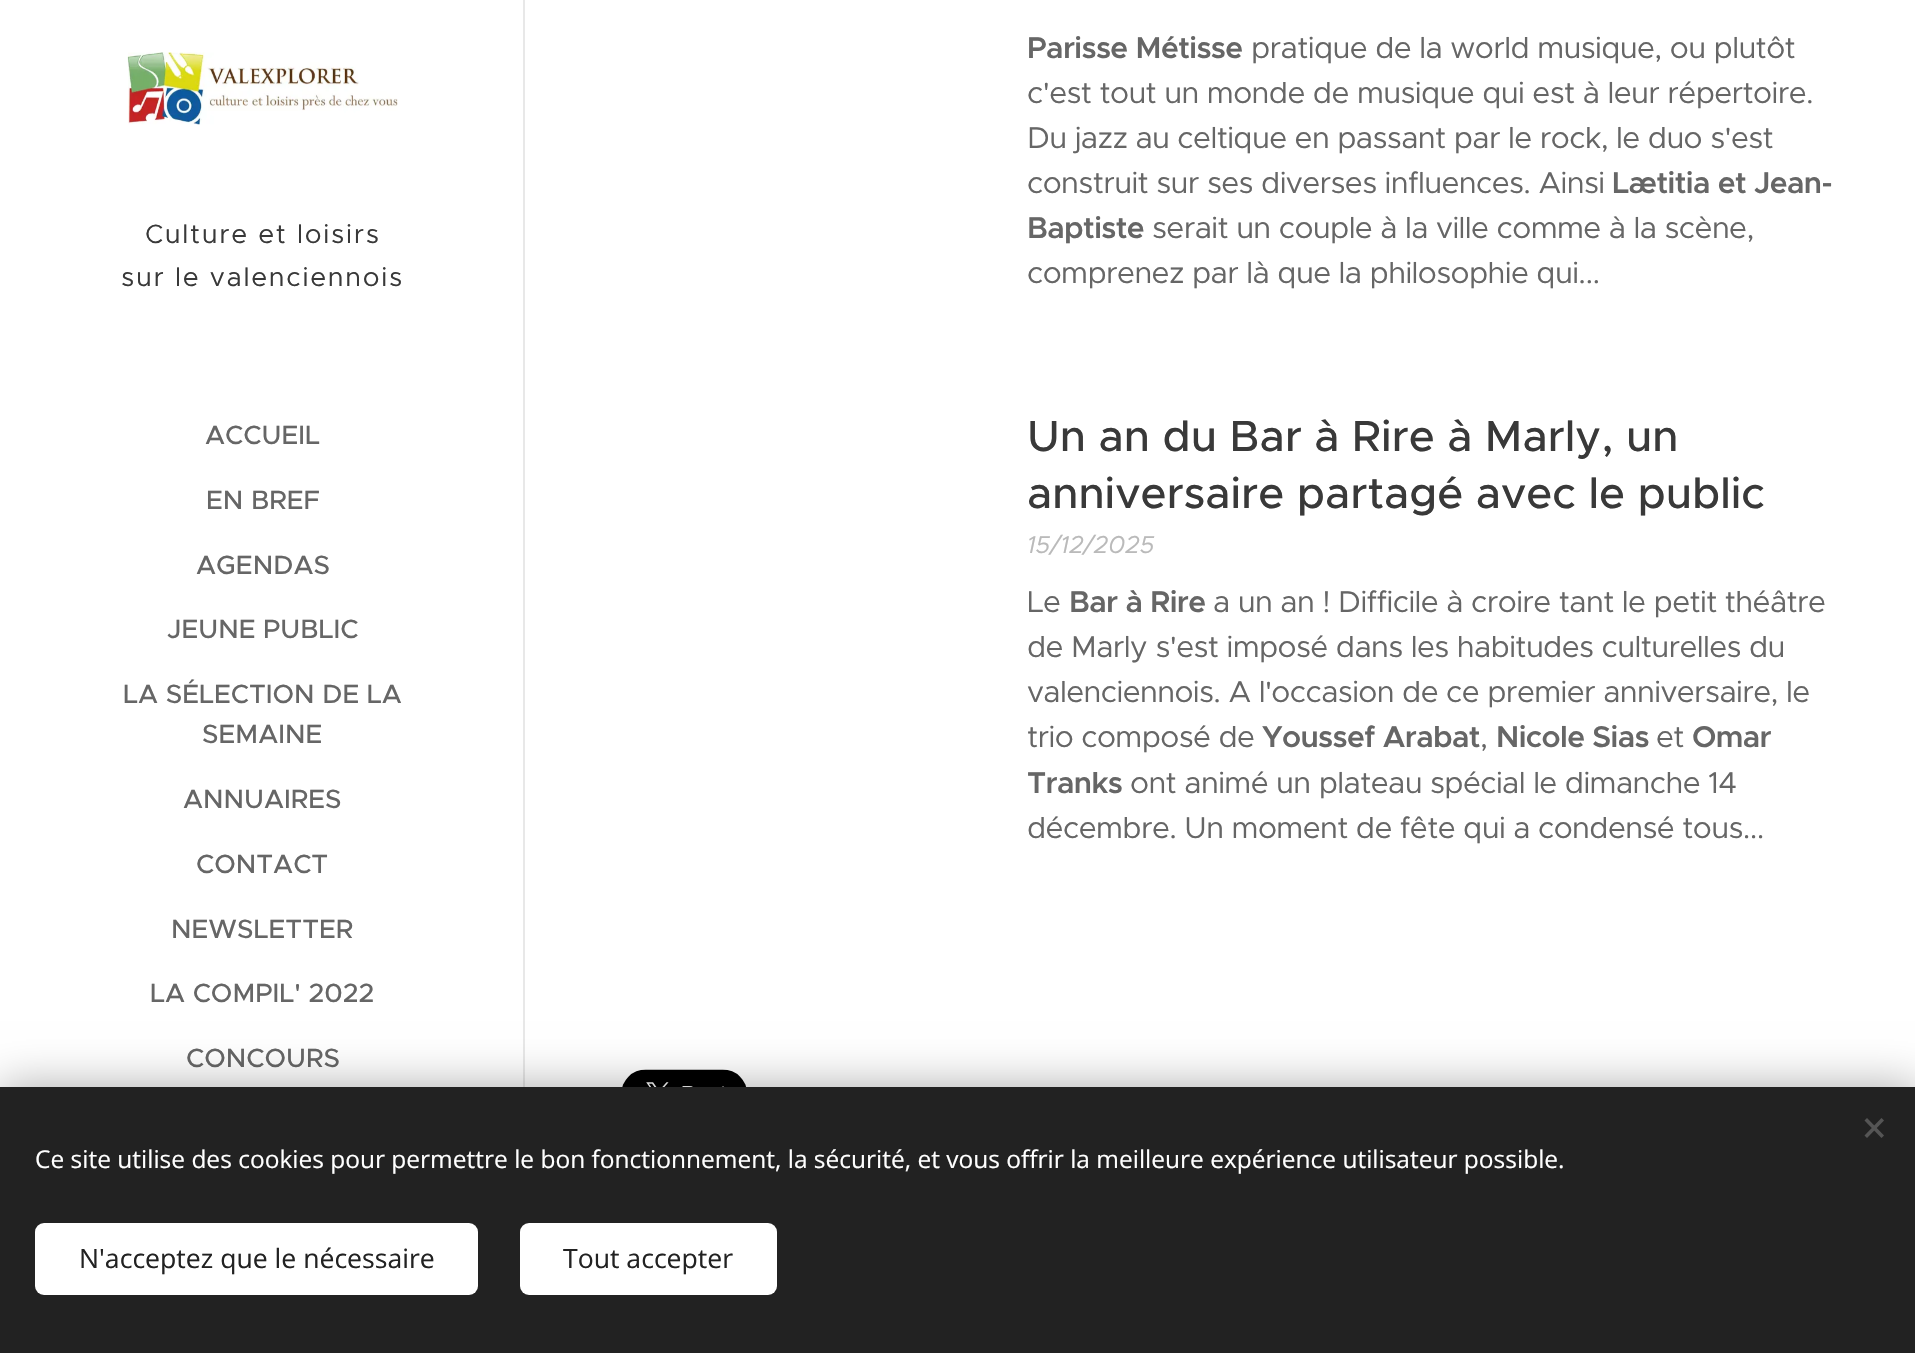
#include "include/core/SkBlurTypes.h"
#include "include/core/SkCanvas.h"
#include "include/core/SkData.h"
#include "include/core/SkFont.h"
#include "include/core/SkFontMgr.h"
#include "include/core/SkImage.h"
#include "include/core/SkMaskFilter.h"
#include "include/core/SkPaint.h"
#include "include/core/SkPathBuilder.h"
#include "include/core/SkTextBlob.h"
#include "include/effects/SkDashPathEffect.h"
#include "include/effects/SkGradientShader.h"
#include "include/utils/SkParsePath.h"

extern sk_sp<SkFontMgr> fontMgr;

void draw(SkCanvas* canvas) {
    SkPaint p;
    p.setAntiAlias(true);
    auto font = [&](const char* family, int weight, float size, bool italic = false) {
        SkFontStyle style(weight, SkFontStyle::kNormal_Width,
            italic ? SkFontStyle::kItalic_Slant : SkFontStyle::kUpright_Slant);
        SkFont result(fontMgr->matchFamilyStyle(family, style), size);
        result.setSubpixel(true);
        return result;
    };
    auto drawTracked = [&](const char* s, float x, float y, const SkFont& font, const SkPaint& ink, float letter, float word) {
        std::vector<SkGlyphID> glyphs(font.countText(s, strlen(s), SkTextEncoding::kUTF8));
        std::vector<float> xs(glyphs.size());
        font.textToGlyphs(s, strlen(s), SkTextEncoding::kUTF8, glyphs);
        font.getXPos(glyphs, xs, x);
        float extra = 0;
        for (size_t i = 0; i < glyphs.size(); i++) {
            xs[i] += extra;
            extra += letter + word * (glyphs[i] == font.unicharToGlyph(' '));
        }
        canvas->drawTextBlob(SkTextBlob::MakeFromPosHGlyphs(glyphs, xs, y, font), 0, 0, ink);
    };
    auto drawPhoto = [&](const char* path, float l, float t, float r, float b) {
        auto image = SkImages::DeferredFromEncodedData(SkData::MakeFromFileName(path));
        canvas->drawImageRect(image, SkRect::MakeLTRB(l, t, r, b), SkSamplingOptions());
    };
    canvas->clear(0xFFFFFFFF);
    drawPhoto("media/1.png", 127, 52, 398, 125);
    auto font1 = font("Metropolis", 400, 26.6f);
    p.setColor(0xFF393939);
    drawTracked("Culture et loisirs", 145, 243, font1, p, 1.75f, 0);
    drawTracked("sur le valenciennois", 121, 286, font1, p, 1.75f, 0);
    auto font2 = font("Metropolis", 500, 26.6f);
    p.setColor(0xFF666666);
    {
        const struct { const char* s; float x, y; } items[] = {
            {"ACCUEIL", 205, 444},
            {"EN BREF", 206, 509},
            {"AGENDAS", 196, 574},
            {"JEUNE PUBLIC", 167, 638},
            {"LA SÉLECTION DE LA", 123, 703},
            {"SEMAINE", 202, 743},
            {"ANNUAIRES", 183, 808},
            {"CONTACT", 196, 873},
            {"NEWSLETTER", 171, 938},
            {"LA COMPIL' 2022", 150, 1002},
            {"CONCOURS", 186, 1067},
        };
        for (auto [s, x, y] : items) {
            canvas->drawString(s, x, y, font2, p);
        }
    }
    p.setColor(0xFFE8E8E8);
    canvas->drawRect(SkRect::MakeLTRB(523, 0, 525, 1087), p);
    auto font3 = font("Metropolis", 600, 30.1f);
    p.setColor(0xFF666666);
    drawTracked("Parisse Métisse", 1027, 58, font3, p, -0.6f, 0);
    auto font4 = font("Metropolis", 400, 30.1f);
    {
        const struct { const char* s; float x, y; } items[] = {
            {"pratique de la world musique, ou plutôt", 1251, 58},
            {"c'est tout un monde de musique qui est à leur répertoire.", 1027, 103},
            {"Du jazz au celtique en passant par le rock, le duo s'est", 1027, 148},
            {"construit sur ses diverses influences. Ainsi", 1027, 193},
        };
        for (auto [s, x, y] : items) {
            drawTracked(s, x, y, font4, p, -0.6f, 0);
        }
    }
    drawTracked("Lætitia et Jean-", 1612, 193, font3, p, -0.6f, 0);
    drawTracked("Baptiste", 1027, 238, font3, p, -0.6f, 0);
    drawTracked("serait un couple à la ville comme à la scène,", 1152, 238, font4, p, -0.6f, 0);
    drawTracked("comprenez par là que la philosophie qui...", 1027, 283, font4, p, -0.6f, 0);
    auto font5 = font("Metropolis", 500, 43.75f);
    p.setColor(0xFF393939);
    canvas->drawString("Un an du Bar à Rire à Marly, un", 1027, 451, font5, p);
    canvas->drawString("anniversaire partagé avec le public", 1027, 508, font5, p);
    auto font6 = font("Metropolis", 400, 24.5f, true);
    p.setColor(0xFFBABABA);
    canvas->drawString("15/12/2025", 1027, 553, font6, p);
    p.setColor(0xFF666666);
    drawTracked("Le", 1027, 612, font4, p, -0.6f, 0);
    drawTracked("Bar à Rire", 1069, 612, font3, p, -0.6f, 0);
    {
        const struct { const char* s; float x, y; } items[] = {
            {"a un an ! Difficile à croire tant le petit théâtre", 1213, 612},
            {"de Marly s'est imposé dans les habitudes culturelles du", 1027, 657},
            {"valenciennois. A l'occasion de ce premier anniversaire, le", 1027, 702},
            {"trio composé de", 1027, 747},
        };
        for (auto [s, x, y] : items) {
            drawTracked(s, x, y, font4, p, -0.6f, 0);
        }
    }
    drawTracked("Youssef Arabat", 1262, 747, font3, p, -0.6f, 0);
    drawTracked(",", 1480, 747, font4, p, -0.6f, 0);
    drawTracked("Nicole Sias", 1496, 747, font3, p, -0.6f, 0);
    drawTracked("et", 1656, 747, font4, p, -0.6f, 0);
    drawTracked("Omar", 1692, 747, font3, p, -0.6f, 0);
    drawTracked("Tranks", 1027, 793, font3, p, -0.6f, 0);
    drawTracked("ont animé un plateau spécial le dimanche 14", 1130, 793, font4, p, -0.6f, 0);
    drawTracked("décembre. Un moment de fête qui a condensé tous...", 1027, 838, font4, p, -0.6f, 0);
    drawPhoto("media/2.png", 622, 1069, 747, 1087);
    p.setColor(0x54000000);
    p.setMaskFilter(SkMaskFilter::MakeBlur(kNormal_SkBlurStyle, 22));
    canvas->drawRect(SkRect::MakeLTRB(0, 1087, 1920, 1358), p);
    p.setMaskFilter(nullptr);
    p.setColor(0xFF222222);
    canvas->drawRect(SkRect::MakeLTRB(0, 1087, 1915, 1353), p);
    p.setColor(0xFF555555);
    canvas->drawPath(SkPathBuilder().moveTo(1864.5f, 1135.5f).lineTo(1881.5f, 1118).lineTo(1884, 1120.5f).lineTo(1867, 1138).close().detach(), p);
    canvas->drawPath(SkPathBuilder().moveTo(1867, 1118).lineTo(1884, 1135.5f).lineTo(1881.5f, 1138).lineTo(1864.5f, 1120.5f).close().detach(), p);
    auto font7 = font("Open Sans", 400, 24.5f);
    p.setColor(0xFFFFFFFF);
    canvas->drawString("Ce site utilise des cookies pour permettre le bon fonctionnement, la sécurité, et vous offrir la meilleure expérience utilisateur possible.", 35, 1168, font7, p);
    canvas->drawRoundRect(SkRect::MakeLTRB(35, 1223, 478, 1295), 9, 9, p);
    auto font8 = font("Open Sans", 400, 26.6f);
    p.setColor(0xFF222222);
    canvas->drawString("N'acceptez que le nécessaire", 79, 1268, font8, p);
    p.setColor(0xFFFFFFFF);
    canvas->drawRoundRect(SkRect::MakeLTRB(520, 1223, 777, 1295), 9, 9, p);
    p.setColor(0xFF222222);
    canvas->drawString("Tout accepter", 563, 1268, font8, p);
}
